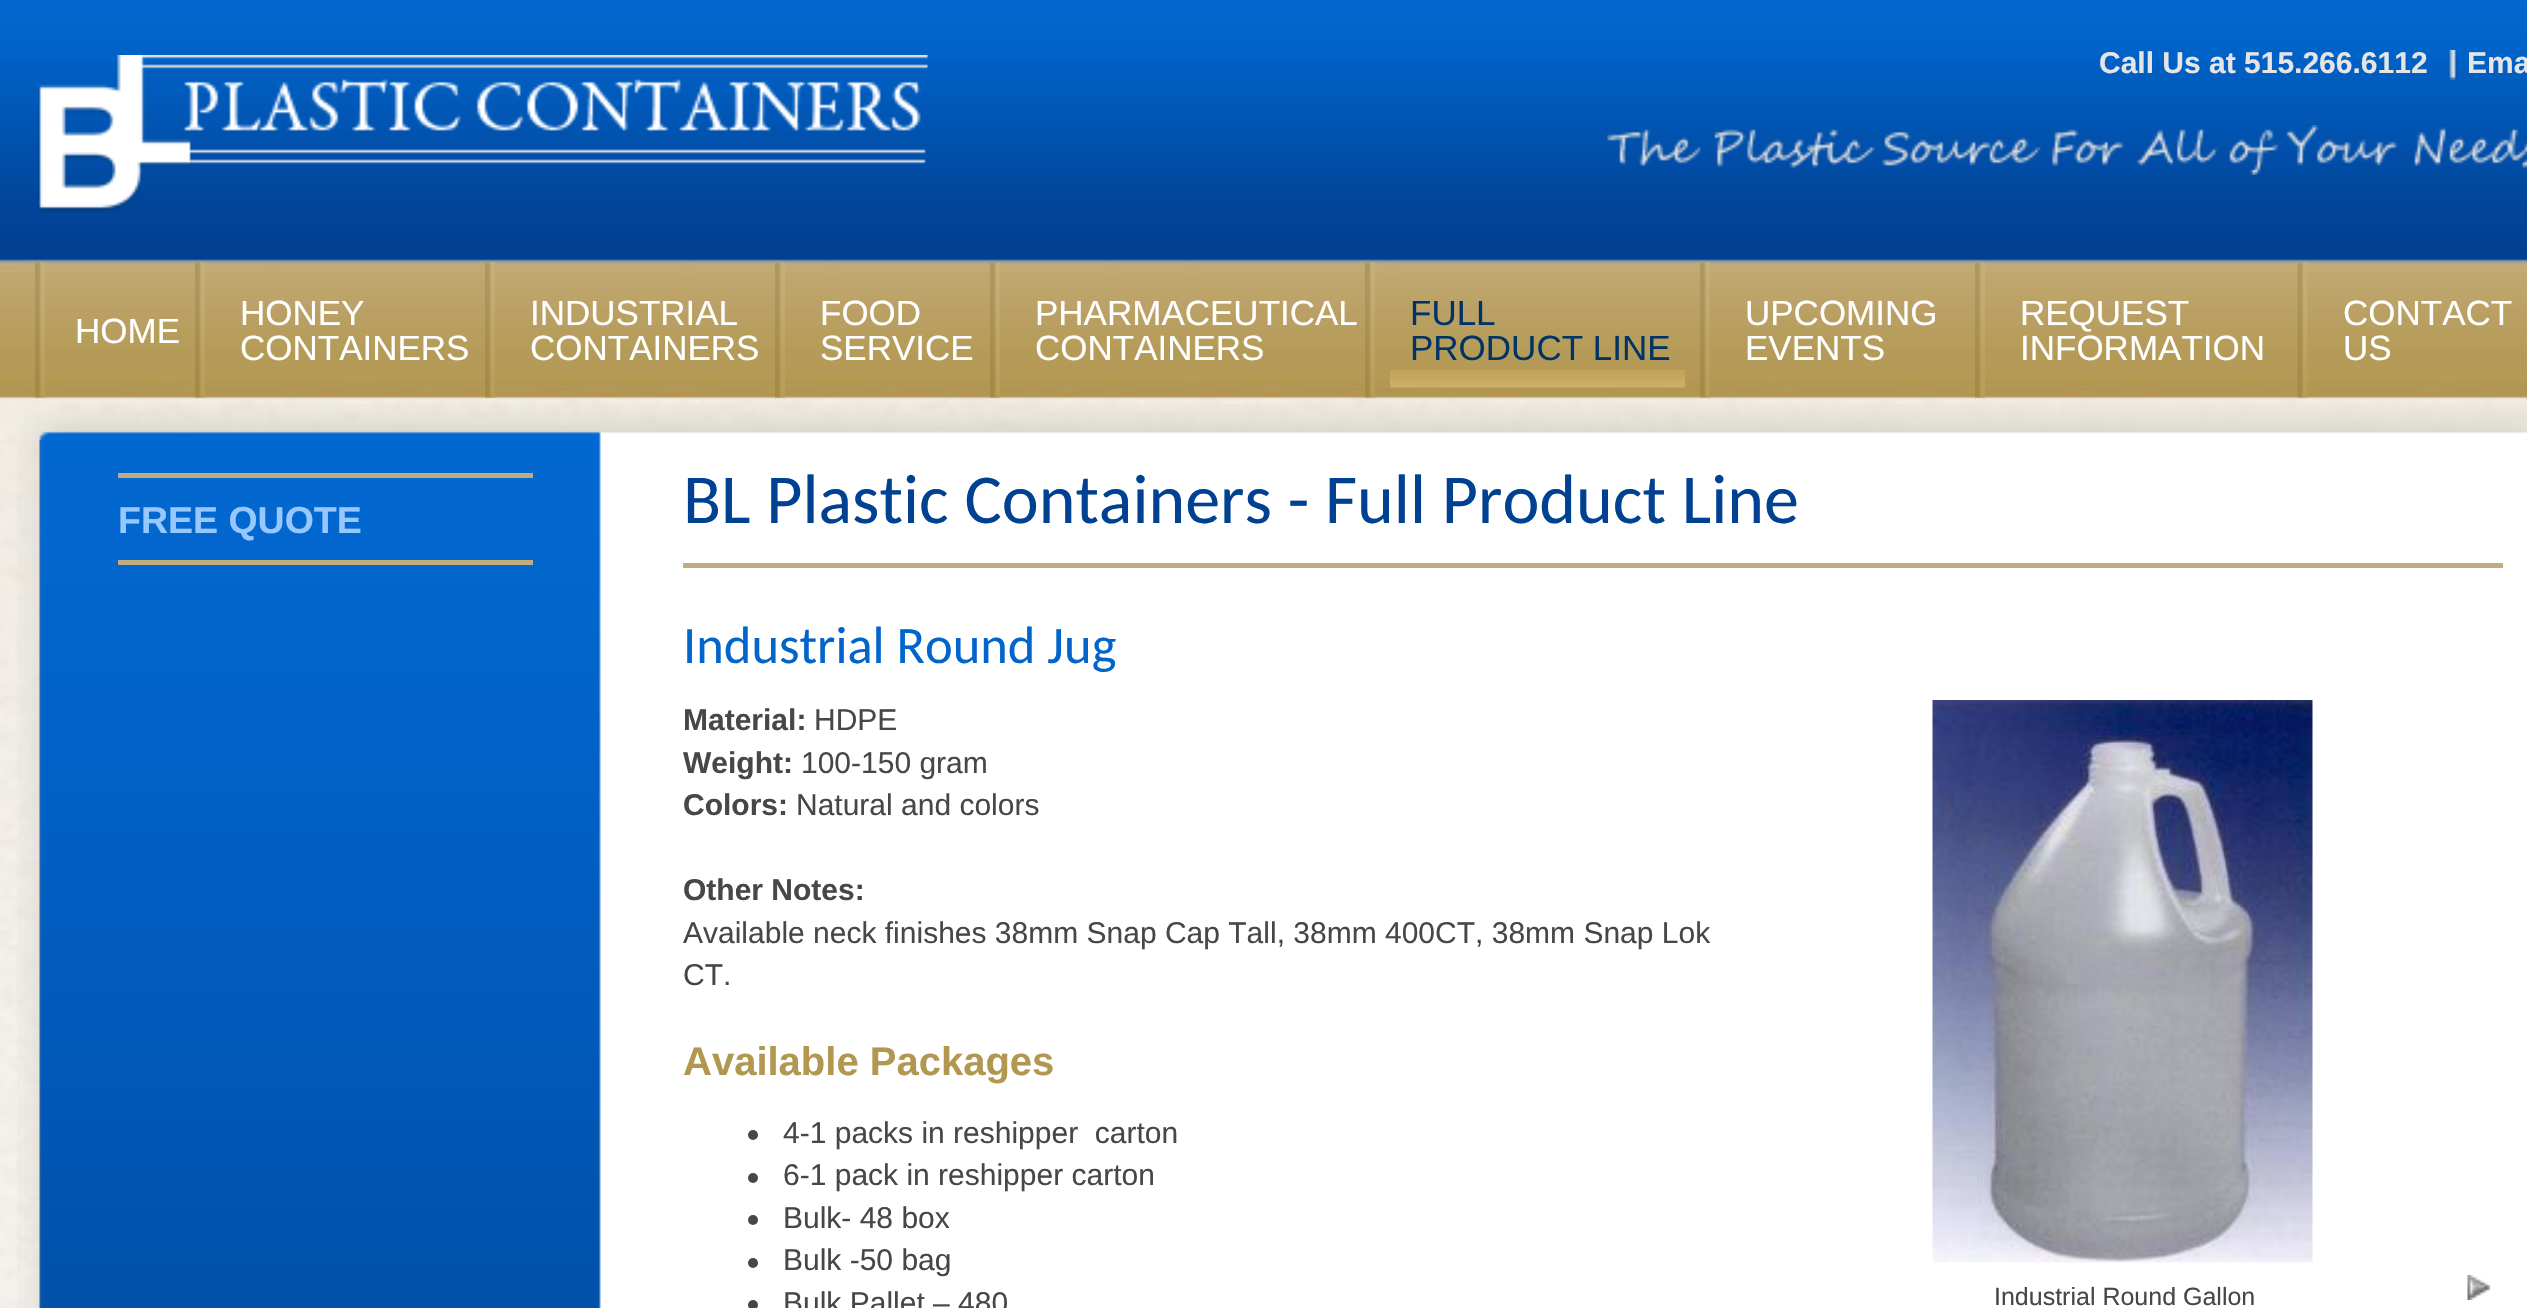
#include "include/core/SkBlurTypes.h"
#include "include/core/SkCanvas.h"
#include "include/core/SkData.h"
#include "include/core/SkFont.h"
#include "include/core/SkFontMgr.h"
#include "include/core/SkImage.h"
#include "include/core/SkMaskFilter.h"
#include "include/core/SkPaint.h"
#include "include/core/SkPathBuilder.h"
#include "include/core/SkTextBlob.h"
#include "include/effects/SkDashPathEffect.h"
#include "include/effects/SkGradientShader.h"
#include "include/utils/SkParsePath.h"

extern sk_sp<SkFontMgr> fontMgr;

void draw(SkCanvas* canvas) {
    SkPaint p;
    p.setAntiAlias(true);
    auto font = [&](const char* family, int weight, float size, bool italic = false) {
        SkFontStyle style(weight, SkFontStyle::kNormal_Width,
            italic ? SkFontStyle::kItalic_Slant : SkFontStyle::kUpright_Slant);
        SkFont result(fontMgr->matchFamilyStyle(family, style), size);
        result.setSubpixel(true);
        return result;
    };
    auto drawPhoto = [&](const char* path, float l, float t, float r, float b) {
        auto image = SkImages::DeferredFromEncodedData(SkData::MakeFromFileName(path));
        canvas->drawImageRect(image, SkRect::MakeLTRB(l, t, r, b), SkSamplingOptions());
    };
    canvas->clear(0xFFFFFFFF);
    drawPhoto("media/1.png", 0, 0, 2527, 1308);
    drawPhoto("media/2.png", 37, 55, 928, 213);
    auto font1 = font("Liberation Sans", 700, 30);
    p.setColor(0xFFE5E5E5);
    canvas->drawString("Call Us at 515.266.6112", 2099, 73, font1, p);
    drawPhoto("media/3.png", 2447, 50, 2458, 80);
    canvas->drawString("Ema", 2467, 73, font1, p);
    drawPhoto("media/4.png", 1607, 125, 2527, 175);
    drawPhoto("media/5.png", 35, 262, 45, 398);
    auto font2 = font("Liberation Sans", 400, 35);
    p.setColor(0xFFFFFFFF);
    canvas->drawString("HOME", 75, 343, font2, p);
    drawPhoto("media/6.png", 195, 262, 205, 398);
    canvas->drawString("HONEY", 240, 325, font2, p);
    canvas->drawString("CONTAINERS", 240, 360, font2, p);
    drawPhoto("media/7.png", 485, 262, 495, 398);
    canvas->drawString("INDUSTRIAL", 530, 325, font2, p);
    canvas->drawString("CONTAINERS", 530, 360, font2, p);
    drawPhoto("media/6.png", 775, 262, 785, 398);
    canvas->drawString("FOOD", 820, 325, font2, p);
    canvas->drawString("SERVICE", 820, 360, font2, p);
    drawPhoto("media/8.png", 990, 262, 1000, 398);
    canvas->drawString("PHARMACEUTICAL", 1035, 325, font2, p);
    canvas->drawString("CONTAINERS", 1035, 360, font2, p);
    drawPhoto("media/8.png", 1365, 262, 1375, 398);
    drawPhoto("media/9.png", 1390, 370, 1685, 388);
    p.setColor(0xFF023367);
    canvas->drawString("FULL", 1410, 325, font2, p);
    canvas->drawString("PRODUCT LINE", 1410, 360, font2, p);
    drawPhoto("media/10.png", 1700, 262, 1710, 398);
    p.setColor(0xFFFFFFFF);
    canvas->drawString("UPCOMING", 1745, 325, font2, p);
    canvas->drawString("EVENTS", 1745, 360, font2, p);
    drawPhoto("media/11.png", 1975, 262, 1985, 398);
    canvas->drawString("REQUEST", 2020, 325, font2, p);
    canvas->drawString("INFORMATION", 2020, 360, font2, p);
    drawPhoto("media/12.png", 2297, 262, 2308, 398);
    canvas->drawString("CONTACT", 2343, 325, font2, p);
    canvas->drawString("US", 2343, 360, font2, p);
    drawPhoto("media/13.png", 20, 404, 2527, 440);
    drawPhoto("media/14.png", 17, 440, 2527, 1308);
    drawPhoto("media/15.png", 39, 440, 601, 1308);
    p.setColor(0xFFC0AC7E);
    canvas->drawRect(SkRect::MakeLTRB(118, 473, 533, 478), p);
    canvas->drawRect(SkRect::MakeLTRB(118, 560, 533, 565), p);
    auto font3 = font("Liberation Sans", 700, 37.5f);
    p.setColor(0xFF96C8FD);
    canvas->drawString("FREE QUOTE", 118, 533, font3, p);
    p.setColor(0xFFC0AC7E);
    canvas->drawRect(SkRect::MakeLTRB(683, 563, 2503, 568), p);
    auto font4 = font("Carlito", 400, 70);
    p.setColor(0xFF004191);
    canvas->drawString("BL Plastic Containers - Full Product Line", 683, 523, font4, p);
    auto font5 = font("Carlito", 400, 52.5f);
    p.setColor(0xFF0265CC);
    canvas->drawString("Industrial Round Jug", 683, 663, font5, p);
    p.setColor(0xFF484747);
    canvas->drawString("Material:", 683, 730, font1, p);
    auto font6 = font("Liberation Sans", 400, 30);
    canvas->drawString("HDPE", 814, 730, font6, p);
    canvas->drawString("Weight:", 683, 773, font1, p);
    canvas->drawString("100-150 gram", 801, 773, font6, p);
    canvas->drawString("Colors:", 683, 815, font1, p);
    canvas->drawString("Natural and colors", 796, 815, font6, p);
    canvas->drawString("Other Notes:", 683, 900, font1, p);
    canvas->drawString("Available neck finishes 38mm Snap Cap Tall, 38mm 400CT, 38mm Snap Lok", 683, 943, font6, p);
    canvas->drawString("CT.", 683, 985, font6, p);
    auto font7 = font("Liberation Sans", 700, 40);
    p.setColor(0xFFB29751);
    canvas->drawString("Available Packages", 683, 1075, font7, p);
    p.setColor(0xFF484747);
    canvas->drawCircle(753, 1135, 5, p);
    canvas->drawString("4-1 packs in reshipper  carton", 783, 1143, font6, p);
    canvas->drawCircle(753, 1178, 5, p);
    canvas->drawString("6-1 pack in reshipper carton", 783, 1185, font6, p);
    canvas->drawCircle(753, 1220, 5, p);
    canvas->drawString("Bulk- 48 box", 783, 1228, font6, p);
    canvas->drawCircle(753, 1263, 5, p);
    canvas->drawString("Bulk -50 bag", 783, 1270, font6, p);
    canvas->drawCircle(753, 1305, 5, p);
    canvas->drawString("Bulk Pallet – 480", 783, 1313, font6, p);
    drawPhoto("media/16.png", 1932, 700, 2313, 1263);
    auto font8 = font("Liberation Sans", 400, 25);
    canvas->drawString("Industrial Round Gallon", 1994, 1305, font8, p);
    drawPhoto("media/17.png", 2467, 1275, 2490, 1300);
}
